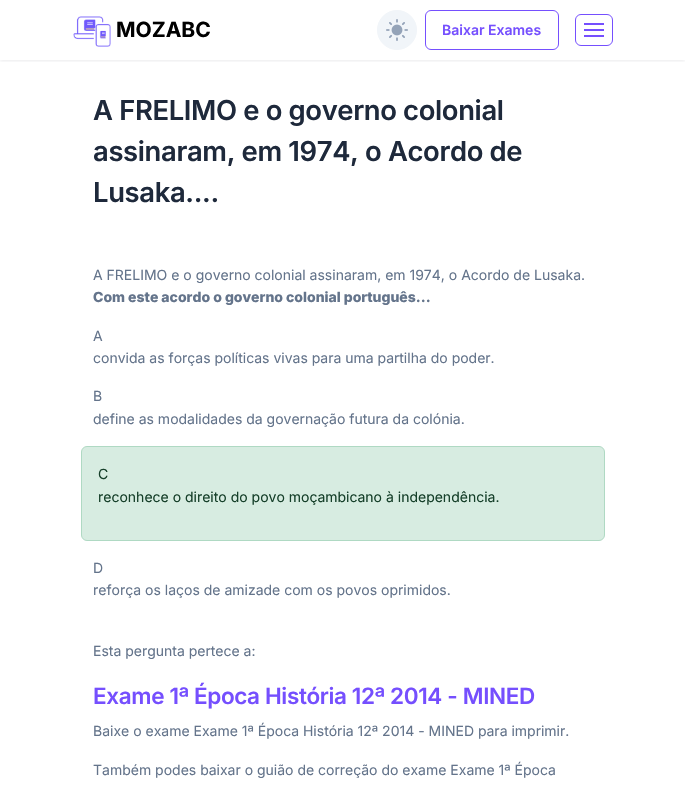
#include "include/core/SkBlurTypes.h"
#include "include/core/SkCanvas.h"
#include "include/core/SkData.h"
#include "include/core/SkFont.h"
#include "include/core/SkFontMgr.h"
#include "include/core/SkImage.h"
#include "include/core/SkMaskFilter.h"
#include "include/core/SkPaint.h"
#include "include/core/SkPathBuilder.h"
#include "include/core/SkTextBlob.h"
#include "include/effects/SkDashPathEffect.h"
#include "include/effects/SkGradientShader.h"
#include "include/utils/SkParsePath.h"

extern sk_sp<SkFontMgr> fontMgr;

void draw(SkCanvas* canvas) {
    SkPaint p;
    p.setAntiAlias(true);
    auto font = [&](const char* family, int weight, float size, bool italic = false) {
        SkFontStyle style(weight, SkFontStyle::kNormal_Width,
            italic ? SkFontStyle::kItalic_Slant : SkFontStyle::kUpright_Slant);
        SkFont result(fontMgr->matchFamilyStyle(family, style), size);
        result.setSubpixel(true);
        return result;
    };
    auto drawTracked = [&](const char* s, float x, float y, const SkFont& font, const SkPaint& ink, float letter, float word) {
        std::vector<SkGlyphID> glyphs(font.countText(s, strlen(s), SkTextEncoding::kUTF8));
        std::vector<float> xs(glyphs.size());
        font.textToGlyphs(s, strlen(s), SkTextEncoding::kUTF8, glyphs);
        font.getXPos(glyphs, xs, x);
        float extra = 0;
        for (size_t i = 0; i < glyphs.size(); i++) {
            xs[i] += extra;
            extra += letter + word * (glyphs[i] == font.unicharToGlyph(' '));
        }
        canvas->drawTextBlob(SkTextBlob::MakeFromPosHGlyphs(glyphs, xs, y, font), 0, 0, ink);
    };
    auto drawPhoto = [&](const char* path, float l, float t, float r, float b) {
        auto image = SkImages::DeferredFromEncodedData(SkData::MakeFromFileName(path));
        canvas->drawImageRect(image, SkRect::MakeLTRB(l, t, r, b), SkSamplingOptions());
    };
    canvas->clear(0xFFFFFFFF);
    canvas->save();
    canvas->clipRect(SkRect::MakeLTRB(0, 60, 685, 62));
    p.setColor(0x17111827);
    p.setMaskFilter(SkMaskFilter::MakeBlur(kNormal_SkBlurStyle, 1.5f));
    canvas->drawRect(SkRect::MakeLTRB(0, 1, 685, 61), p);
    p.setMaskFilter(nullptr);
    canvas->restore();
    drawPhoto("media/1.png", 73, 16, 111, 47);
    auto font1 = font("Inter", 700, 21);
    p.setColor(0xFF000000);
    canvas->drawString("MOZABC", 116, 37, font1, p);
    p.setColor(0xFFF1F5F9);
    canvas->drawCircle(397, 30, 19.5f, p);
    p.setStyle(SkPaint::kStroke_Style);
    p.setStrokeWidth(1);
    canvas->drawCircle(397, 30, 19.5f, p);
    drawPhoto("media/2.png", 386, 19, 408, 41);
    p.setColor(0xFF754FFE);
    canvas->drawRoundRect(SkRect::MakeLTRB(425.5f, 10.5f, 558.5f, 49.5f), 5.5f, 5.5f, p);
    auto font2 = font("Inter", 600, 14);
    p.setStyle(SkPaint::kFill_Style);
    canvas->drawString("Baixar Exames", 442, 35, font2, p);
    p.setStyle(SkPaint::kStroke_Style);
    canvas->drawRoundRect(SkRect::MakeLTRB(575.5f, 14.5f, 612.5f, 45.5f), 5.5f, 5.5f, p);
    p.setStyle(SkPaint::kFill_Style);
    {
        const struct { float l, t, r, b; SkColor color; } items[] = {
            {584, 23, 604, 25, 0xFF754FFE},
            {584, 29, 604, 31, 0xFF754FFE},
            {584, 35, 604, 37, 0xFF754FFE},
        };
        for (auto [l, t, r, b, color] : items) {
            p.setColor(color);
            canvas->drawRect(SkRect::MakeLTRB(l, t, r, b), p);
        }
    }
    auto font3 = font("Inter", 600, 27.4f);
    p.setColor(0xFF1E293B);
    {
        const struct { const char* s; float x, y; } items[] = {
            {"A FRELIMO e o governo colonial", 93, 120},
            {"assinaram, em 1974, o Acordo de", 93, 161},
            {"Lusaka....", 93, 202},
        };
        for (auto [s, x, y] : items) {
            drawTracked(s, x, y, font3, p, -0.35f, 0);
        }
    }
    auto font4 = font("Inter", 400, 14);
    p.setColor(0xFF64748B);
    canvas->drawString("A FRELIMO e o governo colonial assinaram, em 1974, o Acordo de Lusaka.", 93, 280, font4, p);
    auto font5 = font("Inter", 800, 14);
    canvas->drawString("Com este acordo o governo colonial português...", 93, 302, font5, p);
    {
        const struct { const char* s; float x, y; } items[] = {
            {"A", 93, 341},
            {"convida as forças políticas vivas para uma partilha do poder.", 93, 363},
            {"B", 93, 401},
            {"define as modalidades da governação futura da colónia.", 93, 424},
        };
        for (auto [s, x, y] : items) {
            canvas->drawString(s, x, y, font4, p);
        }
    }
    p.setColor(0xFFD7ECE1);
    canvas->drawRoundRect(SkRect::MakeLTRB(81.5f, 446.5f, 604.5f, 540.5f), 5.5f, 5.5f, p);
    p.setStyle(SkPaint::kStroke_Style);
    p.setColor(0xFFAFD9C3);
    canvas->drawRoundRect(SkRect::MakeLTRB(81.5f, 446.5f, 604.5f, 540.5f), 5.5f, 5.5f, p);
    p.setStyle(SkPaint::kFill_Style);
    p.setColor(0xFF16402A);
    canvas->drawString("C", 98, 479, font4, p);
    canvas->drawString("reconhece o direito do povo moçambicano à independência.", 98, 502, font4, p);
    p.setColor(0xFF64748B);
    {
        const struct { const char* s; float x, y; } items[] = {
            {"D", 93, 573},
            {"reforça os laços de amizade com os povos oprimidos.", 93, 595},
            {"Esta pergunta pertece a:", 93, 656},
        };
        for (auto [s, x, y] : items) {
            canvas->drawString(s, x, y, font4, p);
        }
    }
    auto font6 = font("Inter", 600, 22.5f);
    p.setColor(0xFF754FFE);
    drawTracked("Exame 1ª Época História 12ª 2014 - MINED", 93, 704, font6, p, -0.35f, 0);
    p.setColor(0xFF64748B);
    canvas->drawString("Baixe o exame Exame 1ª Época História 12ª 2014 - MINED para imprimir.", 93, 736, font4, p);
    canvas->drawString("Também podes baixar o guião de correção do exame Exame 1ª Época", 93, 775, font4, p);
}
